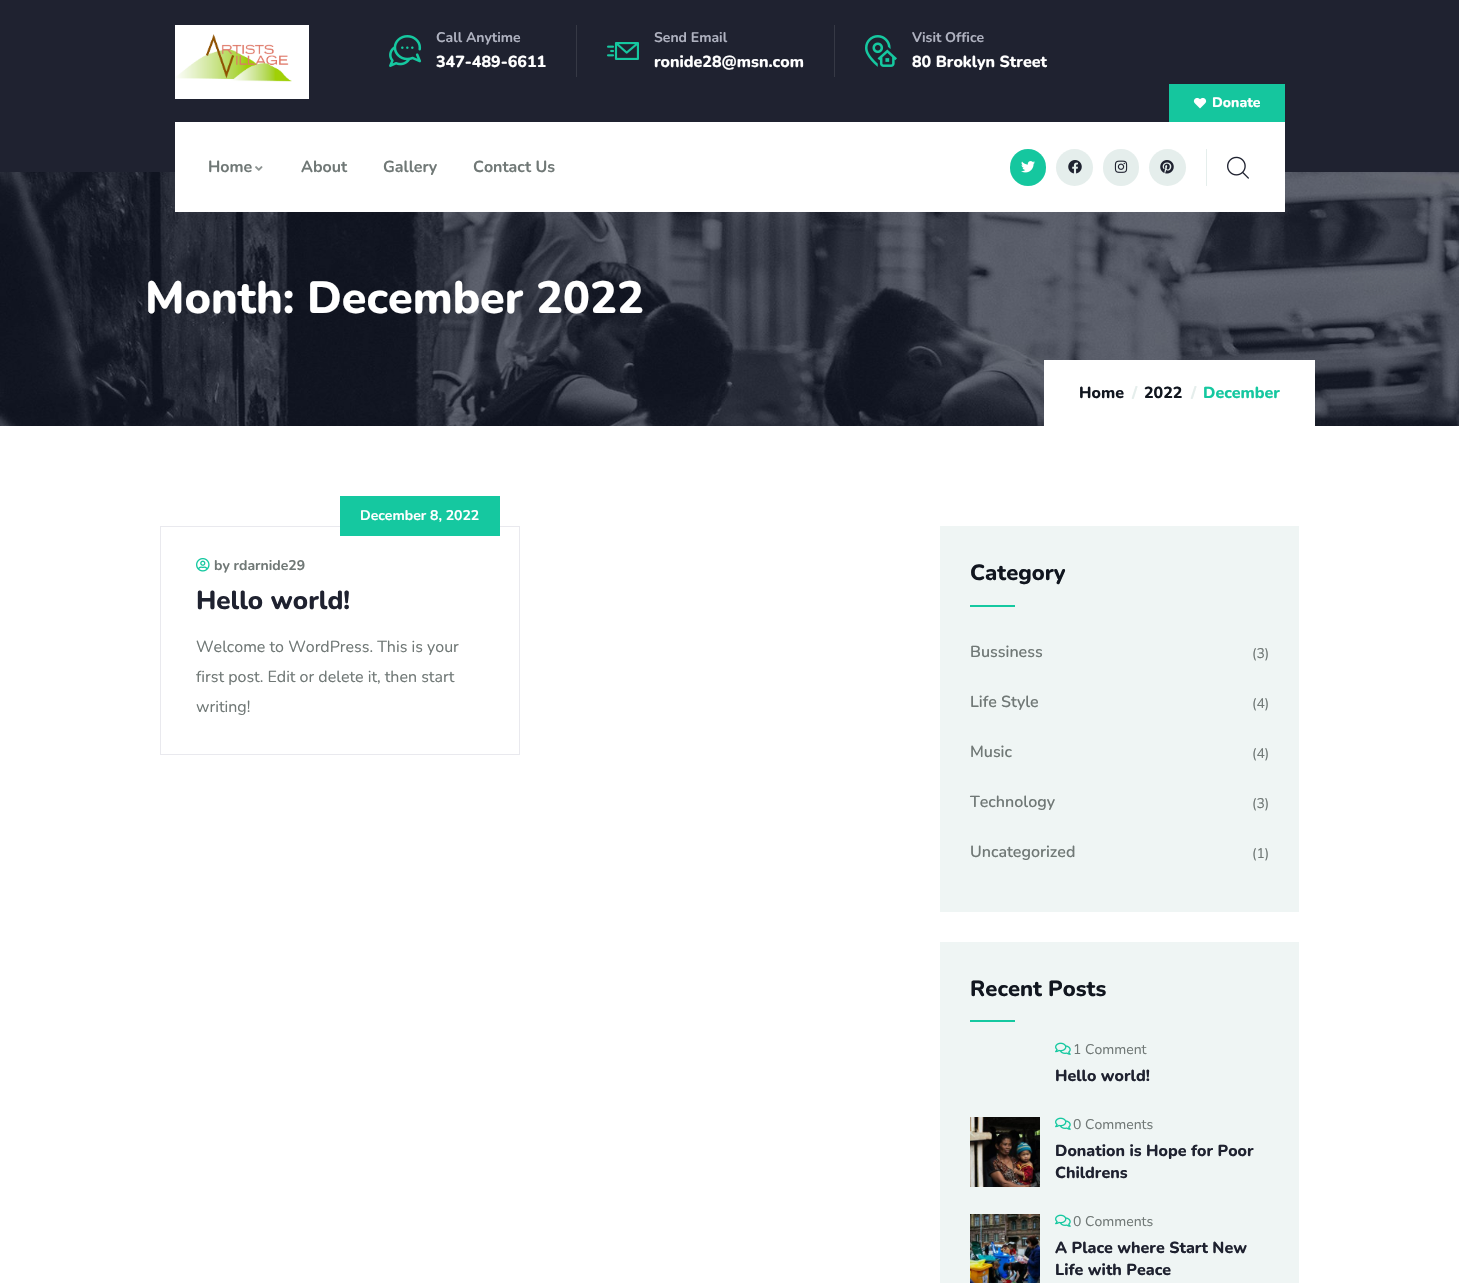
#include "include/core/SkBlurTypes.h"
#include "include/core/SkCanvas.h"
#include "include/core/SkData.h"
#include "include/core/SkFont.h"
#include "include/core/SkFontMgr.h"
#include "include/core/SkImage.h"
#include "include/core/SkMaskFilter.h"
#include "include/core/SkPaint.h"
#include "include/core/SkPathBuilder.h"
#include "include/core/SkTextBlob.h"
#include "include/effects/SkDashPathEffect.h"
#include "include/effects/SkGradientShader.h"
#include "include/utils/SkParsePath.h"

extern sk_sp<SkFontMgr> fontMgr;

void draw(SkCanvas* canvas) {
    SkPaint p;
    p.setAntiAlias(true);
    auto font = [&](const char* family, int weight, float size, bool italic = false) {
        SkFontStyle style(weight, SkFontStyle::kNormal_Width,
            italic ? SkFontStyle::kItalic_Slant : SkFontStyle::kUpright_Slant);
        SkFont result(fontMgr->matchFamilyStyle(family, style), size);
        result.setSubpixel(true);
        return result;
    };
    auto drawPhoto = [&](const char* path, float l, float t, float r, float b) {
        auto image = SkImages::DeferredFromEncodedData(SkData::MakeFromFileName(path));
        canvas->drawImageRect(image, SkRect::MakeLTRB(l, t, r, b), SkSamplingOptions());
    };
    canvas->clear(0xFFFFFFFF);
    p.setColor(0xFF1F2230);
    canvas->drawRect(SkRect::MakeLTRB(0, 0, 1459, 172), p);
    drawPhoto("media/1.png", 175, 25, 309, 99);
    p.setColor(0xFF363945);
    canvas->drawRect(SkRect::MakeLTRB(576, 25, 577, 77), p);
    drawPhoto("media/2.png", 389, 35, 422, 67);
    auto font1 = font("Nunito", 700, 14);
    p.setColor(0xFFAFB2C0);
    canvas->drawString("Call Anytime", 436, 42, font1, p);
    auto font2 = font("Nunito", 800, 16);
    p.setColor(0xFFFFFFFF);
    canvas->drawString("347-489-6611", 436, 67, font2, p);
    p.setColor(0xFF363945);
    canvas->drawRect(SkRect::MakeLTRB(834, 25, 835, 77), p);
    drawPhoto("media/3.png", 607, 42, 639, 60);
    p.setColor(0xFFAFB2C0);
    canvas->drawString("Send Email", 654, 42, font1, p);
    p.setColor(0xFFFFFFFF);
    canvas->drawString("ronide28@msn.com", 654, 67, font2, p);
    drawPhoto("media/4.png", 865, 35, 897, 67);
    p.setColor(0xFFAFB2C0);
    canvas->drawString("Visit Office", 912, 42, font1, p);
    p.setColor(0xFFFFFFFF);
    canvas->drawString("80 Broklyn Street", 912, 67, font2, p);
    p.setColor(0xFF15C69E);
    canvas->drawRect(SkRect::MakeLTRB(1169, 84, 1285, 122), p);
    drawPhoto("media/5.png", 1193, 97, 1207, 109);
    auto font3 = font("Nunito", 800, 14);
    p.setColor(0xFFFFFFFF);
    canvas->drawString("Donate", 1212, 107, font3, p);
    drawPhoto("media/12.png", 0, 172, 1459, 426);
    canvas->drawRect(SkRect::MakeLTRB(175, 122, 1285, 212), p);
    auto font4 = font("Nunito", 700, 16);
    p.setColor(0xFF707876);
    canvas->drawString("Home", 208, 172, font4, p);
    drawPhoto("media/6.png", 255, 166, 263, 171);
    {
        const struct { const char* s; float x, y; } items[] = {
            {"About", 301, 172},
            {"Gallery", 383, 172},
            {"Contact Us", 473, 172},
        };
        for (auto [s, x, y] : items) {
            canvas->drawString(s, x, y, font4, p);
        }
    }
    p.setColor(0xFFE5EEEC);
    canvas->drawRect(SkRect::MakeLTRB(1206, 149, 1207, 186), p);
    p.setColor(0xFF15C79F);
    canvas->drawRoundRect(SkRect::MakeLTRB(1010, 149, 1046, 186), 18, 18, p);
    drawPhoto("media/7.png", 1021, 161, 1035, 173);
    p.setColor(0xFFE5EEEC);
    canvas->drawCircle(1074.5f, 167.5f, 18.5f, p);
    drawPhoto("media/8.png", 1068, 160, 1082, 174);
    canvas->drawRoundRect(SkRect::MakeLTRB(1103, 149, 1139, 186), 18, 18, p);
    drawPhoto("media/9.png", 1114, 160, 1128, 173);
    canvas->drawCircle(1167.5f, 167.5f, 18.5f, p);
    drawPhoto("media/10.png", 1160, 160, 1174, 174);
    drawPhoto("media/11.png", 1227, 156, 1249, 179);
    auto font5 = font("Nunito", 800, 45);
    p.setColor(0xFFFFFFFF);
    canvas->drawString("Month: December 2022", 145, 313, font5, p);
    canvas->drawRect(SkRect::MakeLTRB(1044, 360, 1315, 426), p);
    p.setColor(0xFF11161F);
    canvas->drawString("Home", 1079, 398, font2, p);
    p.setColor(0xFFE5EEEC);
    canvas->drawString("/", 1132, 398, font2, p);
    p.setColor(0xFF11161F);
    canvas->drawString("2022", 1144, 398, font2, p);
    p.setColor(0xFFE5EEEC);
    canvas->drawString("/", 1191, 398, font2, p);
    p.setColor(0xFF15C8A0);
    canvas->drawString("December", 1203, 398, font2, p);
    p.setStyle(SkPaint::kStroke_Style);
    p.setStrokeWidth(1);
    p.setColor(0xFFE9E9EE);
    canvas->drawRect(SkRect::MakeLTRB(160.5f, 526.5f, 519.5f, 754.5f), p);
    p.setStyle(SkPaint::kFill_Style);
    p.setColor(0xFF15C8A0);
    canvas->drawRect(SkRect::MakeLTRB(340, 496, 500, 536), p);
    p.setColor(0xFFFFFFFF);
    canvas->drawString("December 8, 2022", 360, 520, font1, p);
    drawPhoto("media/13.png", 196, 558, 210, 572);
    p.setColor(0xFF707876);
    canvas->drawString("by rdarnide29", 214, 570, font1, p);
    auto font6 = font("Nunito", 800, 26);
    p.setColor(0xFF1F2230);
    canvas->drawString("Hello world!", 196, 609, font6, p);
    auto font7 = font("Nunito", 400, 16);
    p.setColor(0xFF707876);
    {
        const struct { const char* s; float x, y; } items[] = {
            {"Welcome to WordPress. This is your", 196, 652},
            {"first post. Edit or delete it, then start", 196, 682},
            {"writing!", 196, 712},
        };
        for (auto [s, x, y] : items) {
            canvas->drawString(s, x, y, font7, p);
        }
    }
    p.setColor(0xFFEFF5F4);
    canvas->drawRect(SkRect::MakeLTRB(940, 526, 1299, 912), p);
    auto font8 = font("Nunito", 800, 22);
    p.setColor(0xFF11161F);
    canvas->drawString("Category", 970, 580, font8, p);
    p.setColor(0xFF15C8A0);
    canvas->drawRect(SkRect::MakeLTRB(970, 605, 1015, 607), p);
    auto font9 = font("Nunito", 600, 16);
    p.setColor(0xFF707876);
    canvas->drawString("Bussiness", 970, 657, font9, p);
    auto font10 = font("Nunito", 400, 14);
    canvas->drawString("(3)", 1252, 658, font10, p);
    canvas->drawString("Life Style", 970, 707, font9, p);
    canvas->drawString("(4)", 1252, 708, font10, p);
    canvas->drawString("Music", 970, 757, font9, p);
    canvas->drawString("(4)", 1252, 758, font10, p);
    canvas->drawString("Technology", 970, 807, font9, p);
    canvas->drawString("(3)", 1252, 808, font10, p);
    canvas->drawString("Uncategorized", 970, 857, font9, p);
    canvas->drawString("(1)", 1252, 858, font10, p);
    p.setColor(0xFFEFF5F4);
    canvas->drawRect(SkRect::MakeLTRB(940, 942, 1299, 1283), p);
    p.setColor(0xFF11161F);
    canvas->drawString("Recent Posts", 970, 996, font8, p);
    p.setColor(0xFF15C8A0);
    canvas->drawRect(SkRect::MakeLTRB(970, 1020, 1015, 1022), p);
    drawPhoto("media/14.png", 1055, 1042, 1071, 1055);
    p.setColor(0xFF707876);
    canvas->drawString("1 Comment", 1073, 1054, font10, p);
    p.setColor(0xFF1F2230);
    canvas->drawString("Hello world!", 1055, 1081, font2, p);
    drawPhoto("media/15.png", 970, 1117, 1040, 1187);
    drawPhoto("media/14.png", 1055, 1117, 1071, 1130);
    p.setColor(0xFF707876);
    canvas->drawString("0 Comments", 1073, 1129, font10, p);
    p.setColor(0xFF1F2230);
    canvas->drawString("Donation is Hope for Poor", 1055, 1156, font2, p);
    canvas->drawString("Childrens", 1055, 1178, font2, p);
    drawPhoto("media/16.png", 970, 1214, 1040, 1283);
    drawPhoto("media/14.png", 1055, 1214, 1071, 1227);
    p.setColor(0xFF707876);
    canvas->drawString("0 Comments", 1073, 1226, font10, p);
    p.setColor(0xFF1F2230);
    canvas->drawString("A Place where Start New", 1055, 1253, font2, p);
    canvas->drawString("Life with Peace", 1055, 1275, font2, p);
}
